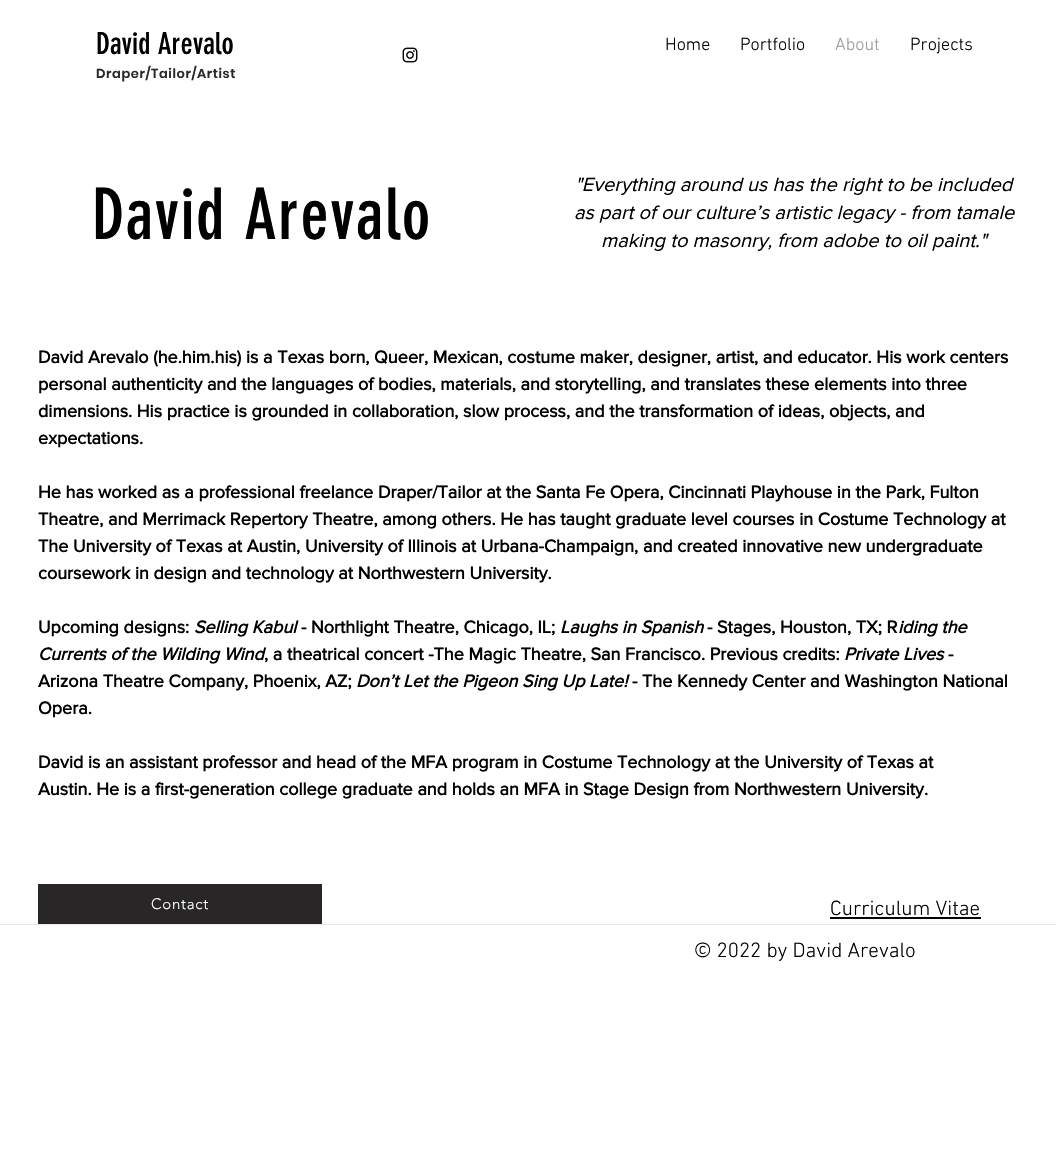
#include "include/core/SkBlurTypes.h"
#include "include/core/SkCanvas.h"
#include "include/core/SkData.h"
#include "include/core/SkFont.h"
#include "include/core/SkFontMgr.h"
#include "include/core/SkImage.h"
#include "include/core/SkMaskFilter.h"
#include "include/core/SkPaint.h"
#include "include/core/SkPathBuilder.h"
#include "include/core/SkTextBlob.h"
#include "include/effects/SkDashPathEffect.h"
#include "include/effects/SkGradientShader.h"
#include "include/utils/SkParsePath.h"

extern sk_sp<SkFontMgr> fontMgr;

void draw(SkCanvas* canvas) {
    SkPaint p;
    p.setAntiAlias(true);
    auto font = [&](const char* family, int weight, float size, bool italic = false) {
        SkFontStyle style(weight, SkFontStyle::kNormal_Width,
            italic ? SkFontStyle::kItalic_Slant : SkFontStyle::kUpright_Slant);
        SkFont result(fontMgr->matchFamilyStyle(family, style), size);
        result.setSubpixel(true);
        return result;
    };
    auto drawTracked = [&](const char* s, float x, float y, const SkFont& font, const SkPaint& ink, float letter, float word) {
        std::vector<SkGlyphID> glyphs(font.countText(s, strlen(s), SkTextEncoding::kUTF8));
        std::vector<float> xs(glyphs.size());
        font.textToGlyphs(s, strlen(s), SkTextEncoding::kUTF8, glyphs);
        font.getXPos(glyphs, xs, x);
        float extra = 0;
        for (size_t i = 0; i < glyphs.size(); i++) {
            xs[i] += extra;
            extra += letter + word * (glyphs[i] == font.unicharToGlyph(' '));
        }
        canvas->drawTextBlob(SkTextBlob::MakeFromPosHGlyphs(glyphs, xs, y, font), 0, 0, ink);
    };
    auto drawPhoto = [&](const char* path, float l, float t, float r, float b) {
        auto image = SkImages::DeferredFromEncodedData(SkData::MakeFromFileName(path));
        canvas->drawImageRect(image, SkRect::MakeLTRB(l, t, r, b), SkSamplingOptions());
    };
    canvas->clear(0xFFFFFFFF);
    auto font1 = font("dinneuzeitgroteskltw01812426", 400, 30);
    p.setColor(0xFF000000);
    canvas->drawString("David Arevalo", 96, 54, font1, p);
    drawPhoto("media/1.png", 402, 47, 418, 63);
    auto font2 = font("Poppins", 600, 13);
    p.setColor(0xFF292929);
    drawTracked("Draper/Tailor/Artist", 96, 78, font2, p, 0.6f, 0);
    auto font3 = font("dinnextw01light", 300, 18);
    p.setColor(0xFF000000);
    canvas->drawString("Home", 665, 50, font3, p);
    canvas->drawString("Portfolio", 740, 50, font3, p);
    p.setColor(0xFF999997);
    canvas->drawString("About", 835, 50, font3, p);
    p.setColor(0xFF000000);
    canvas->drawString("Projects", 910, 50, font3, p);
    auto font4 = font("dinneuzeitgroteskltw01812426", 400, 70);
    drawTracked("David Arevalo", 92, 239, font4, p, 1.4f, 0);
    auto font5 = font("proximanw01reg", 400, 20, true);
    {
        const struct { const char* s; float x, y; } items[] = {
            {"\"Everything around us has the right to be included", 575, 191},
            {"as part of our culture’s artistic legacy - from tamale", 574, 219},
            {"making to masonry, from adobe to oil paint.\"", 601, 247},
        };
        for (auto [s, x, y] : items) {
            canvas->drawString(s, x, y, font5, p);
        }
    }
    auto font6 = font("proximanw01reg", 700, 18);
    {
        const struct { const char* s; float x, y; } items[] = {
            {"David Arevalo (he.him.his) is a Texas born, Queer, Mexican, costume maker, designer, artist, and educator. His work centers", 38, 363},
            {"personal authenticity and the languages of bodies, materials, and storytelling, and translates these elements into three", 38, 390},
            {"dimensions. His practice is grounded in collaboration, slow process, and the transformation of ideas, objects, and", 38, 417},
            {"expectations.", 38, 444},
            {"He has worked as a professional freelance Draper/Tailor at the Santa Fe Opera, Cincinnati Playhouse in the Park, Fulton", 38, 498},
            {"Theatre, and Merrimack Repertory Theatre, among others. He has taught graduate level courses in Costume Technology at", 38, 525},
            {"The University of Texas at Austin, University of Illinois at Urbana-Champaign, and created innovative new undergraduate", 38, 552},
            {"coursework in design and technology at Northwestern University.", 38, 579},
            {"Upcoming designs:", 38, 633},
        };
        for (auto [s, x, y] : items) {
            canvas->drawString(s, x, y, font6, p);
        }
    }
    auto font7 = font("proximanw01reg", 700, 18, true);
    canvas->drawString("Selling Kabul", 194, 633, font7, p);
    canvas->drawString("- Northlight Theatre, Chicago, IL;", 301, 633, font6, p);
    canvas->drawString("Laughs in Spanish", 560, 633, font7, p);
    canvas->drawString("- Stages, Houston, TX; R", 707, 633, font6, p);
    canvas->drawString("iding the", 898, 633, font7, p);
    canvas->drawString("Currents of the Wilding Wind", 38, 660, font7, p);
    canvas->drawString(", a theatrical concert -The Magic Theatre, San Francisco. Previous credits:", 264, 660, font6, p);
    canvas->drawString("Private Lives", 844, 660, font7, p);
    canvas->drawString("-", 948, 660, font6, p);
    canvas->drawString("Arizona Theatre Company, Phoenix, AZ;", 38, 687, font6, p);
    canvas->drawString("Don’t Let the Pigeon Sing Up Late!", 356, 687, font7, p);
    {
        const struct { const char* s; float x, y; } items[] = {
            {"- The Kennedy Center and Washington National", 632, 687},
            {"Opera.", 38, 714},
            {"David is an assistant professor and head of the MFA program in Costume Technology at the University of Texas at", 38, 768},
            {"Austin. He is a first-generation college graduate and holds an MFA in Stage Design from Northwestern University.", 38, 795},
        };
        for (auto [s, x, y] : items) {
            canvas->drawString(s, x, y, font6, p);
        }
    }
    p.setColor(0xFF282626);
    canvas->drawRect(SkRect::MakeLTRB(38, 884, 322, 924), p);
    auto font8 = font("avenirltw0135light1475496", 300, 15);
    p.setColor(0xFFFFFFFF);
    drawTracked("Contact", 151, 909, font8, p, 0.75f, 0);
    auto font9 = font("dinnextw01light", 300, 21);
    p.setColor(0xFF000000);
    canvas->drawString("Curriculum Vitae", 830, 915, font9, p);
    canvas->drawRect(SkRect::MakeLTRB(830, 917, 981, 919), p);
    p.setColor(0xFFE8E6E6);
    canvas->drawRect(SkRect::MakeLTRB(0, 924, 1056, 925), p);
    p.setColor(0xFF000000);
    canvas->drawString("© 2022 by David Arevalo", 694, 957, font9, p);
}
